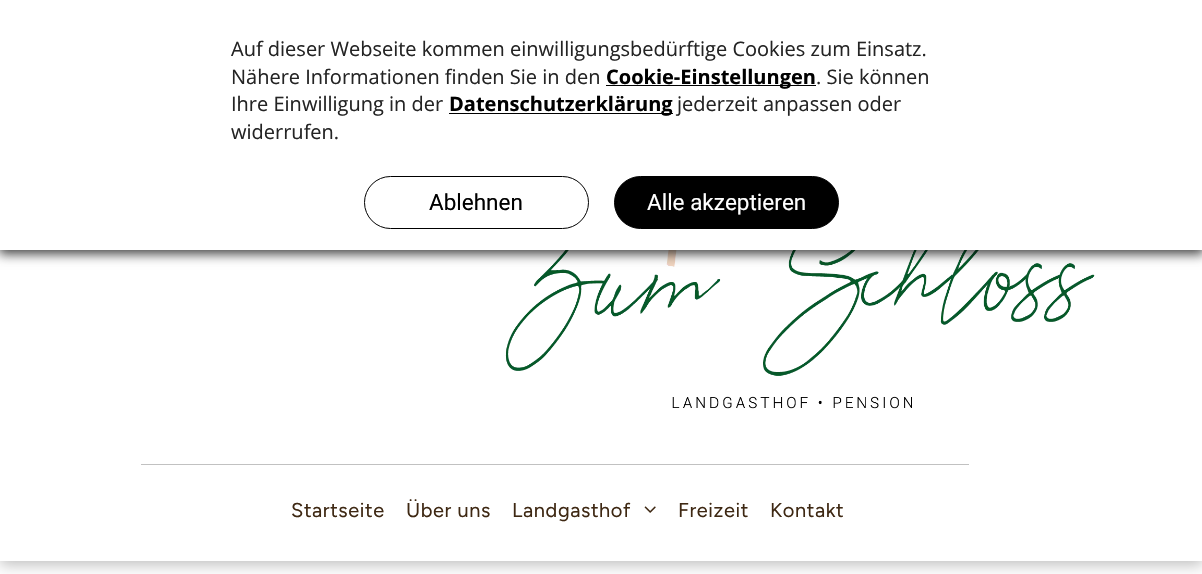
#include "include/core/SkBlurTypes.h"
#include "include/core/SkCanvas.h"
#include "include/core/SkData.h"
#include "include/core/SkFont.h"
#include "include/core/SkFontMgr.h"
#include "include/core/SkImage.h"
#include "include/core/SkMaskFilter.h"
#include "include/core/SkPaint.h"
#include "include/core/SkPathBuilder.h"
#include "include/core/SkTextBlob.h"
#include "include/effects/SkDashPathEffect.h"
#include "include/effects/SkGradientShader.h"
#include "include/utils/SkParsePath.h"

extern sk_sp<SkFontMgr> fontMgr;

void draw(SkCanvas* canvas) {
    SkPaint p;
    p.setAntiAlias(true);
    auto font = [&](const char* family, int weight, float size, bool italic = false) {
        SkFontStyle style(weight, SkFontStyle::kNormal_Width,
            italic ? SkFontStyle::kItalic_Slant : SkFontStyle::kUpright_Slant);
        SkFont result(fontMgr->matchFamilyStyle(family, style), size);
        result.setSubpixel(true);
        return result;
    };
    auto drawTracked = [&](const char* s, float x, float y, const SkFont& font, const SkPaint& ink, float letter, float word) {
        std::vector<SkGlyphID> glyphs(font.countText(s, strlen(s), SkTextEncoding::kUTF8));
        std::vector<float> xs(glyphs.size());
        font.textToGlyphs(s, strlen(s), SkTextEncoding::kUTF8, glyphs);
        font.getXPos(glyphs, xs, x);
        float extra = 0;
        for (size_t i = 0; i < glyphs.size(); i++) {
            xs[i] += extra;
            extra += letter + word * (glyphs[i] == font.unicharToGlyph(' '));
        }
        canvas->drawTextBlob(SkTextBlob::MakeFromPosHGlyphs(glyphs, xs, y, font), 0, 0, ink);
    };
    auto drawPhoto = [&](const char* path, float l, float t, float r, float b) {
        auto image = SkImages::DeferredFromEncodedData(SkData::MakeFromFileName(path));
        canvas->drawImageRect(image, SkRect::MakeLTRB(l, t, r, b), SkSamplingOptions());
    };
    canvas->clear(0xFFFFFFFF);
    p.setColor(0x40000000);
    p.setMaskFilter(SkMaskFilter::MakeBlur(kNormal_SkBlurStyle, 7));
    canvas->drawRect(SkRect::MakeLTRB(0, 4, 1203, 565), p);
    p.setMaskFilter(nullptr);
    p.setColor(0xFFFFFFFF);
    canvas->drawRect(SkRect::MakeLTRB(0, 250, 1202, 561), p);
    drawPhoto("media/1.png", 505, 250, 1095, 409);
    p.setColor(0xBF000000);
    p.setMaskFilter(SkMaskFilter::MakeBlur(kNormal_SkBlurStyle, 5.5f));
    canvas->drawRect(SkRect::MakeLTRB(-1, 1, 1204, 254), p);
    p.setMaskFilter(nullptr);
    p.setColor(0xFFFFFFFF);
    canvas->drawRect(SkRect::MakeLTRB(0, 0, 1202, 250), p);
    auto font1 = font("Open Sans", 400, 20);
    p.setColor(0xFF242424);
    canvas->drawString("Auf dieser Webseite kommen einwilligungsbedürftige Cookies zum Einsatz.", 231, 56, font1, p);
    canvas->drawString("Nähere Informationen finden Sie in den", 231, 84, font1, p);
    p.setColor(0xFF000000);
    canvas->drawRect(SkRect::MakeLTRB(606, 85, 816, 86), p);
    auto font2 = font("Open Sans", 700, 20);
    canvas->drawString("Cookie-Einstellungen", 606, 84, font2, p);
    p.setColor(0xFF242424);
    canvas->drawString(". Sie können", 816, 84, font1, p);
    canvas->drawString("Ihre Einwilligung in der", 231, 111, font1, p);
    p.setColor(0xFF000000);
    canvas->drawRect(SkRect::MakeLTRB(449, 113, 673, 114), p);
    canvas->drawString("Datenschutzerklärung", 449, 111, font2, p);
    p.setColor(0xFF242424);
    canvas->drawString("jederzeit anpassen oder", 677, 111, font1, p);
    canvas->drawString("widerrufen.", 231, 139, font1, p);
    p.setStyle(SkPaint::kStroke_Style);
    p.setStrokeWidth(1);
    p.setColor(0xFF000000);
    canvas->drawRoundRect(SkRect::MakeLTRB(364.5f, 176.5f, 588.5f, 228.5f), 26, 26, p);
    auto font3 = font("Roboto", 400, 22.5f);
    p.setStyle(SkPaint::kFill_Style);
    canvas->drawString("Ablehnen", 429, 210, font3, p);
    canvas->drawRoundRect(SkRect::MakeLTRB(614.5f, 176.5f, 838.5f, 228.5f), 26, 26, p);
    p.setStyle(SkPaint::kStroke_Style);
    canvas->drawRoundRect(SkRect::MakeLTRB(614.5f, 176.5f, 838.5f, 228.5f), 26, 26, p);
    p.setStyle(SkPaint::kFill_Style);
    p.setColor(0xFFFFFFFF);
    canvas->drawString("Alle akzeptieren", 647, 210, font3, p);
    p.setColor(0xFFC1C1C1);
    canvas->drawRect(SkRect::MakeLTRB(141, 464, 969, 465), p);
    auto font4 = font("Figtree", 400, 20);
    p.setColor(0xFF3E2813);
    {
        const struct { const char* s; float x, y; } items[] = {
            {"Startseite", 291, 517},
            {"Über uns", 406, 517},
            {"Landgasthof", 512, 517},
        };
        for (auto [s, x, y] : items) {
            drawTracked(s, x, y, font4, p, 0.6f, 0);
        }
    }
    drawPhoto("media/2.png", 644, 506, 656, 513);
    drawTracked("Freizeit", 678, 517, font4, p, 0.6f, 0);
    drawTracked("Kontakt", 770, 517, font4, p, 0.6f, 0);
}
